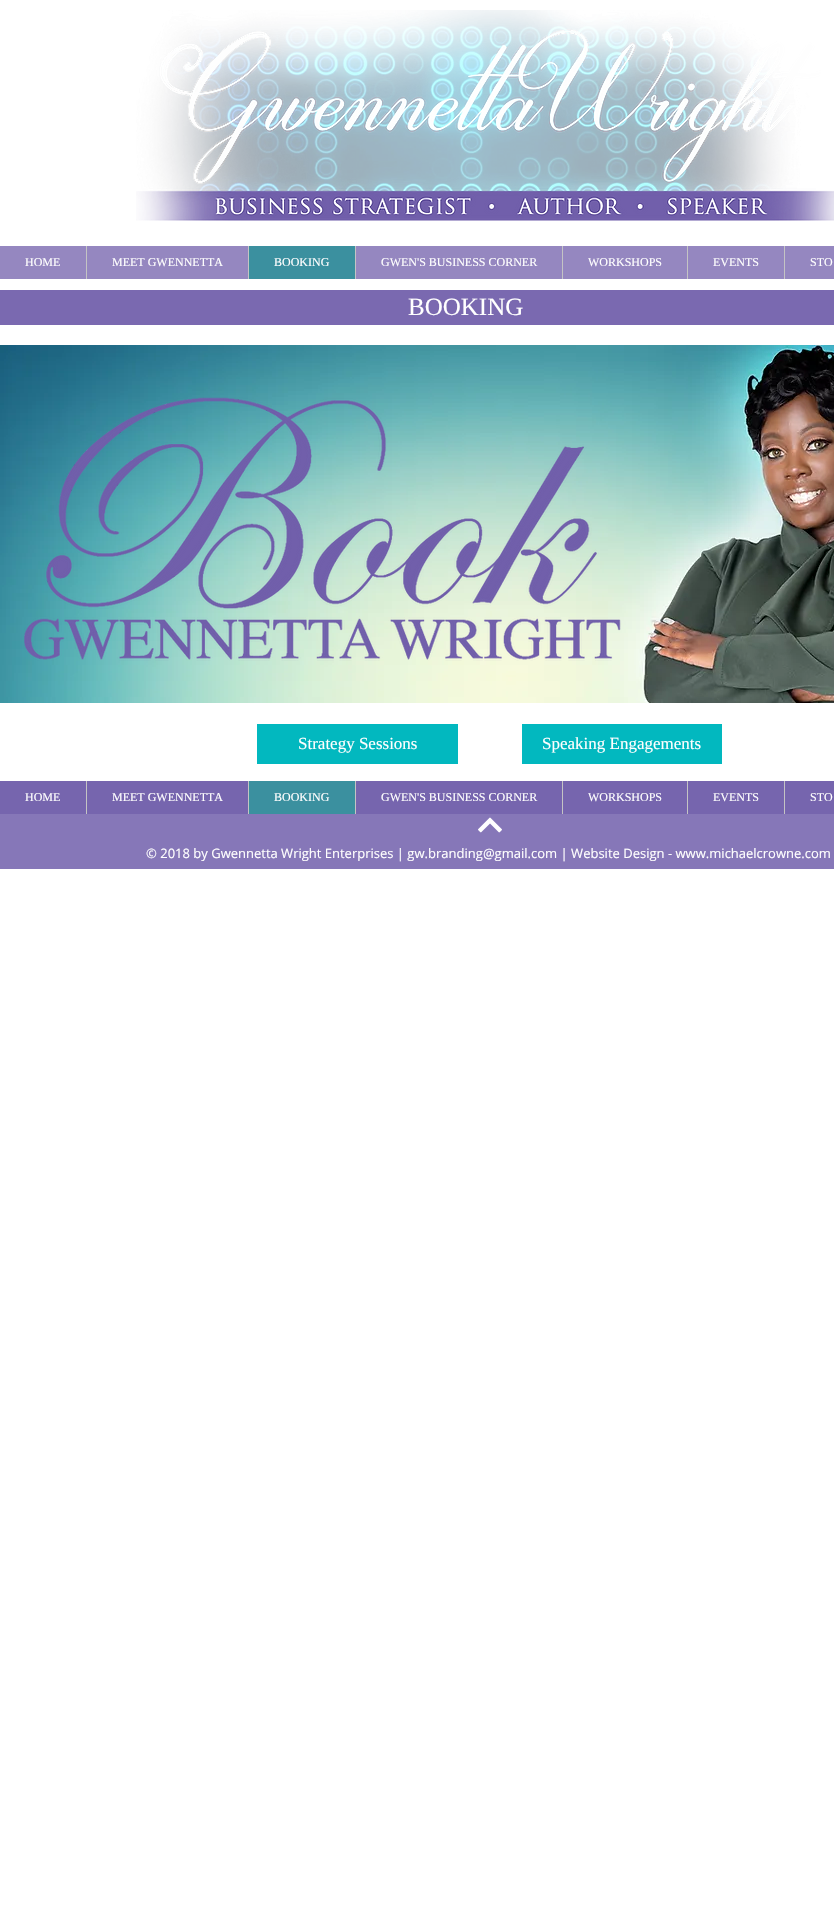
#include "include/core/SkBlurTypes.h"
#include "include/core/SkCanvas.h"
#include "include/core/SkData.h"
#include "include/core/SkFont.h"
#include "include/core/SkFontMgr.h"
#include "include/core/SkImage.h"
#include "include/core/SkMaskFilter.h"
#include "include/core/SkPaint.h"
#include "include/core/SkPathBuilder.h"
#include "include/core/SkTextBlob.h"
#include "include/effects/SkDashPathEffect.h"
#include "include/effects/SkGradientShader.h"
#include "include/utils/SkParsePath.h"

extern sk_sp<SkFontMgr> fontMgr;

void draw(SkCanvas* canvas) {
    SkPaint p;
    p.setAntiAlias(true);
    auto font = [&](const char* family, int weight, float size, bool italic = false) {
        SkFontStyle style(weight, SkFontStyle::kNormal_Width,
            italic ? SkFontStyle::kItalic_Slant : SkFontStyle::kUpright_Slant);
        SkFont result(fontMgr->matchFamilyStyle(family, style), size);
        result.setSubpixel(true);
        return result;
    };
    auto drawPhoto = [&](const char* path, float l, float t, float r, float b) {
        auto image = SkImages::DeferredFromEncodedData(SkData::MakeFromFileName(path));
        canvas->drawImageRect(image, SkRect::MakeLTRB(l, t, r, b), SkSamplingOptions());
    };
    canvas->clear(0xFFFFFFFF);
    drawPhoto("media/1.png", 136, 10, 834, 221);
    p.setColor(0xFF9587C0);
    canvas->drawRect(SkRect::MakeLTRB(0, 246, 834, 279), p);
    auto font1 = font("Liberation Serif", 400, 12);
    p.setColor(0xFFFFFFFF);
    canvas->drawString("HOME", 25, 266, font1, p);
    p.setColor(0xFFC4C4C4);
    canvas->drawRect(SkRect::MakeLTRB(86, 246, 87, 279), p);
    p.setColor(0xFFFFFFFF);
    canvas->drawString("MEET GWENNETTA", 112, 266, font1, p);
    p.setColor(0xFF3B909F);
    canvas->drawRect(SkRect::MakeLTRB(249, 246, 355, 279), p);
    p.setColor(0xFFC4C4C4);
    canvas->drawRect(SkRect::MakeLTRB(248, 246, 249, 279), p);
    p.setColor(0xFFFFFFFF);
    canvas->drawString("BOOKING", 274, 266, font1, p);
    p.setColor(0xFFC4C4C4);
    canvas->drawRect(SkRect::MakeLTRB(355, 246, 356, 279), p);
    p.setColor(0xFFFFFFFF);
    canvas->drawString("GWEN'S BUSINESS CORNER", 381, 266, font1, p);
    p.setColor(0xFFC4C4C4);
    canvas->drawRect(SkRect::MakeLTRB(562, 246, 563, 279), p);
    p.setColor(0xFFFFFFFF);
    canvas->drawString("WORKSHOPS", 588, 266, font1, p);
    p.setColor(0xFFC4C4C4);
    canvas->drawRect(SkRect::MakeLTRB(687, 246, 688, 279), p);
    p.setColor(0xFFFFFFFF);
    canvas->drawString("EVENTS", 713, 266, font1, p);
    p.setColor(0xFFC4C4C4);
    canvas->drawRect(SkRect::MakeLTRB(784, 246, 785, 279), p);
    p.setColor(0xFFFFFFFF);
    canvas->drawString("STO", 810, 266, font1, p);
    p.setColor(0xFF7A69B0);
    canvas->drawRect(SkRect::MakeLTRB(0, 290, 834, 325), p);
    auto font2 = font("Liberation Serif", 400, 25);
    p.setColor(0xFFFFFFFF);
    canvas->drawString("BOOKING", 408, 315, font2, p);
    drawPhoto("media/2.png", 0, 345, 834, 703);
    drawPhoto("media/3.png", 24, 397, 621, 661);
    p.setColor(0xFF02B8BF);
    canvas->drawRect(SkRect::MakeLTRB(257, 724, 458, 764), p);
    auto font3 = font("Liberation Serif", 400, 17);
    p.setColor(0xFFFFFFFF);
    canvas->drawString("Strategy Sessions", 298, 749, font3, p);
    p.setColor(0xFF02B8BF);
    canvas->drawRect(SkRect::MakeLTRB(522, 724, 722, 764), p);
    p.setColor(0xFFFFFFFF);
    canvas->drawString("Speaking Engagements", 542, 749, font3, p);
    p.setColor(0xFF7665AE);
    canvas->drawRect(SkRect::MakeLTRB(0, 781, 834, 814), p);
    p.setColor(0xFFFFFFFF);
    canvas->drawString("HOME", 25, 801, font1, p);
    p.setColor(0xFFC4C4C4);
    canvas->drawRect(SkRect::MakeLTRB(86, 781, 87, 814), p);
    p.setColor(0xFFFFFFFF);
    canvas->drawString("MEET GWENNETTA", 112, 801, font1, p);
    p.setColor(0xFF3B909F);
    canvas->drawRect(SkRect::MakeLTRB(249, 781, 355, 814), p);
    p.setColor(0xFFC4C4C4);
    canvas->drawRect(SkRect::MakeLTRB(248, 781, 249, 814), p);
    p.setColor(0xFFFFFFFF);
    canvas->drawString("BOOKING", 274, 801, font1, p);
    p.setColor(0xFFC4C4C4);
    canvas->drawRect(SkRect::MakeLTRB(355, 781, 356, 814), p);
    p.setColor(0xFFFFFFFF);
    canvas->drawString("GWEN'S BUSINESS CORNER", 381, 801, font1, p);
    p.setColor(0xFFC4C4C4);
    canvas->drawRect(SkRect::MakeLTRB(562, 781, 563, 814), p);
    p.setColor(0xFFFFFFFF);
    canvas->drawString("WORKSHOPS", 588, 801, font1, p);
    p.setColor(0xFFC4C4C4);
    canvas->drawRect(SkRect::MakeLTRB(687, 781, 688, 814), p);
    p.setColor(0xFFFFFFFF);
    canvas->drawString("EVENTS", 713, 801, font1, p);
    p.setColor(0xFFC4C4C4);
    canvas->drawRect(SkRect::MakeLTRB(784, 781, 785, 814), p);
    p.setColor(0xFFFFFFFF);
    canvas->drawString("STO", 810, 801, font1, p);
    p.setColor(0xFF8677B8);
    canvas->drawRect(SkRect::MakeLTRB(0, 814, 834, 869), p);
    drawPhoto("media/4.png", 478, 817, 502, 833);
    auto font4 = font("Open Sans", 400, 13);
    p.setColor(0xFFFFFFFF);
    canvas->drawString("© 2018 by Gwennetta Wright Enterprises | gw.branding@gmail.com | Website Design - www.michaelcrowne.com", 146, 858, font4, p);
}
